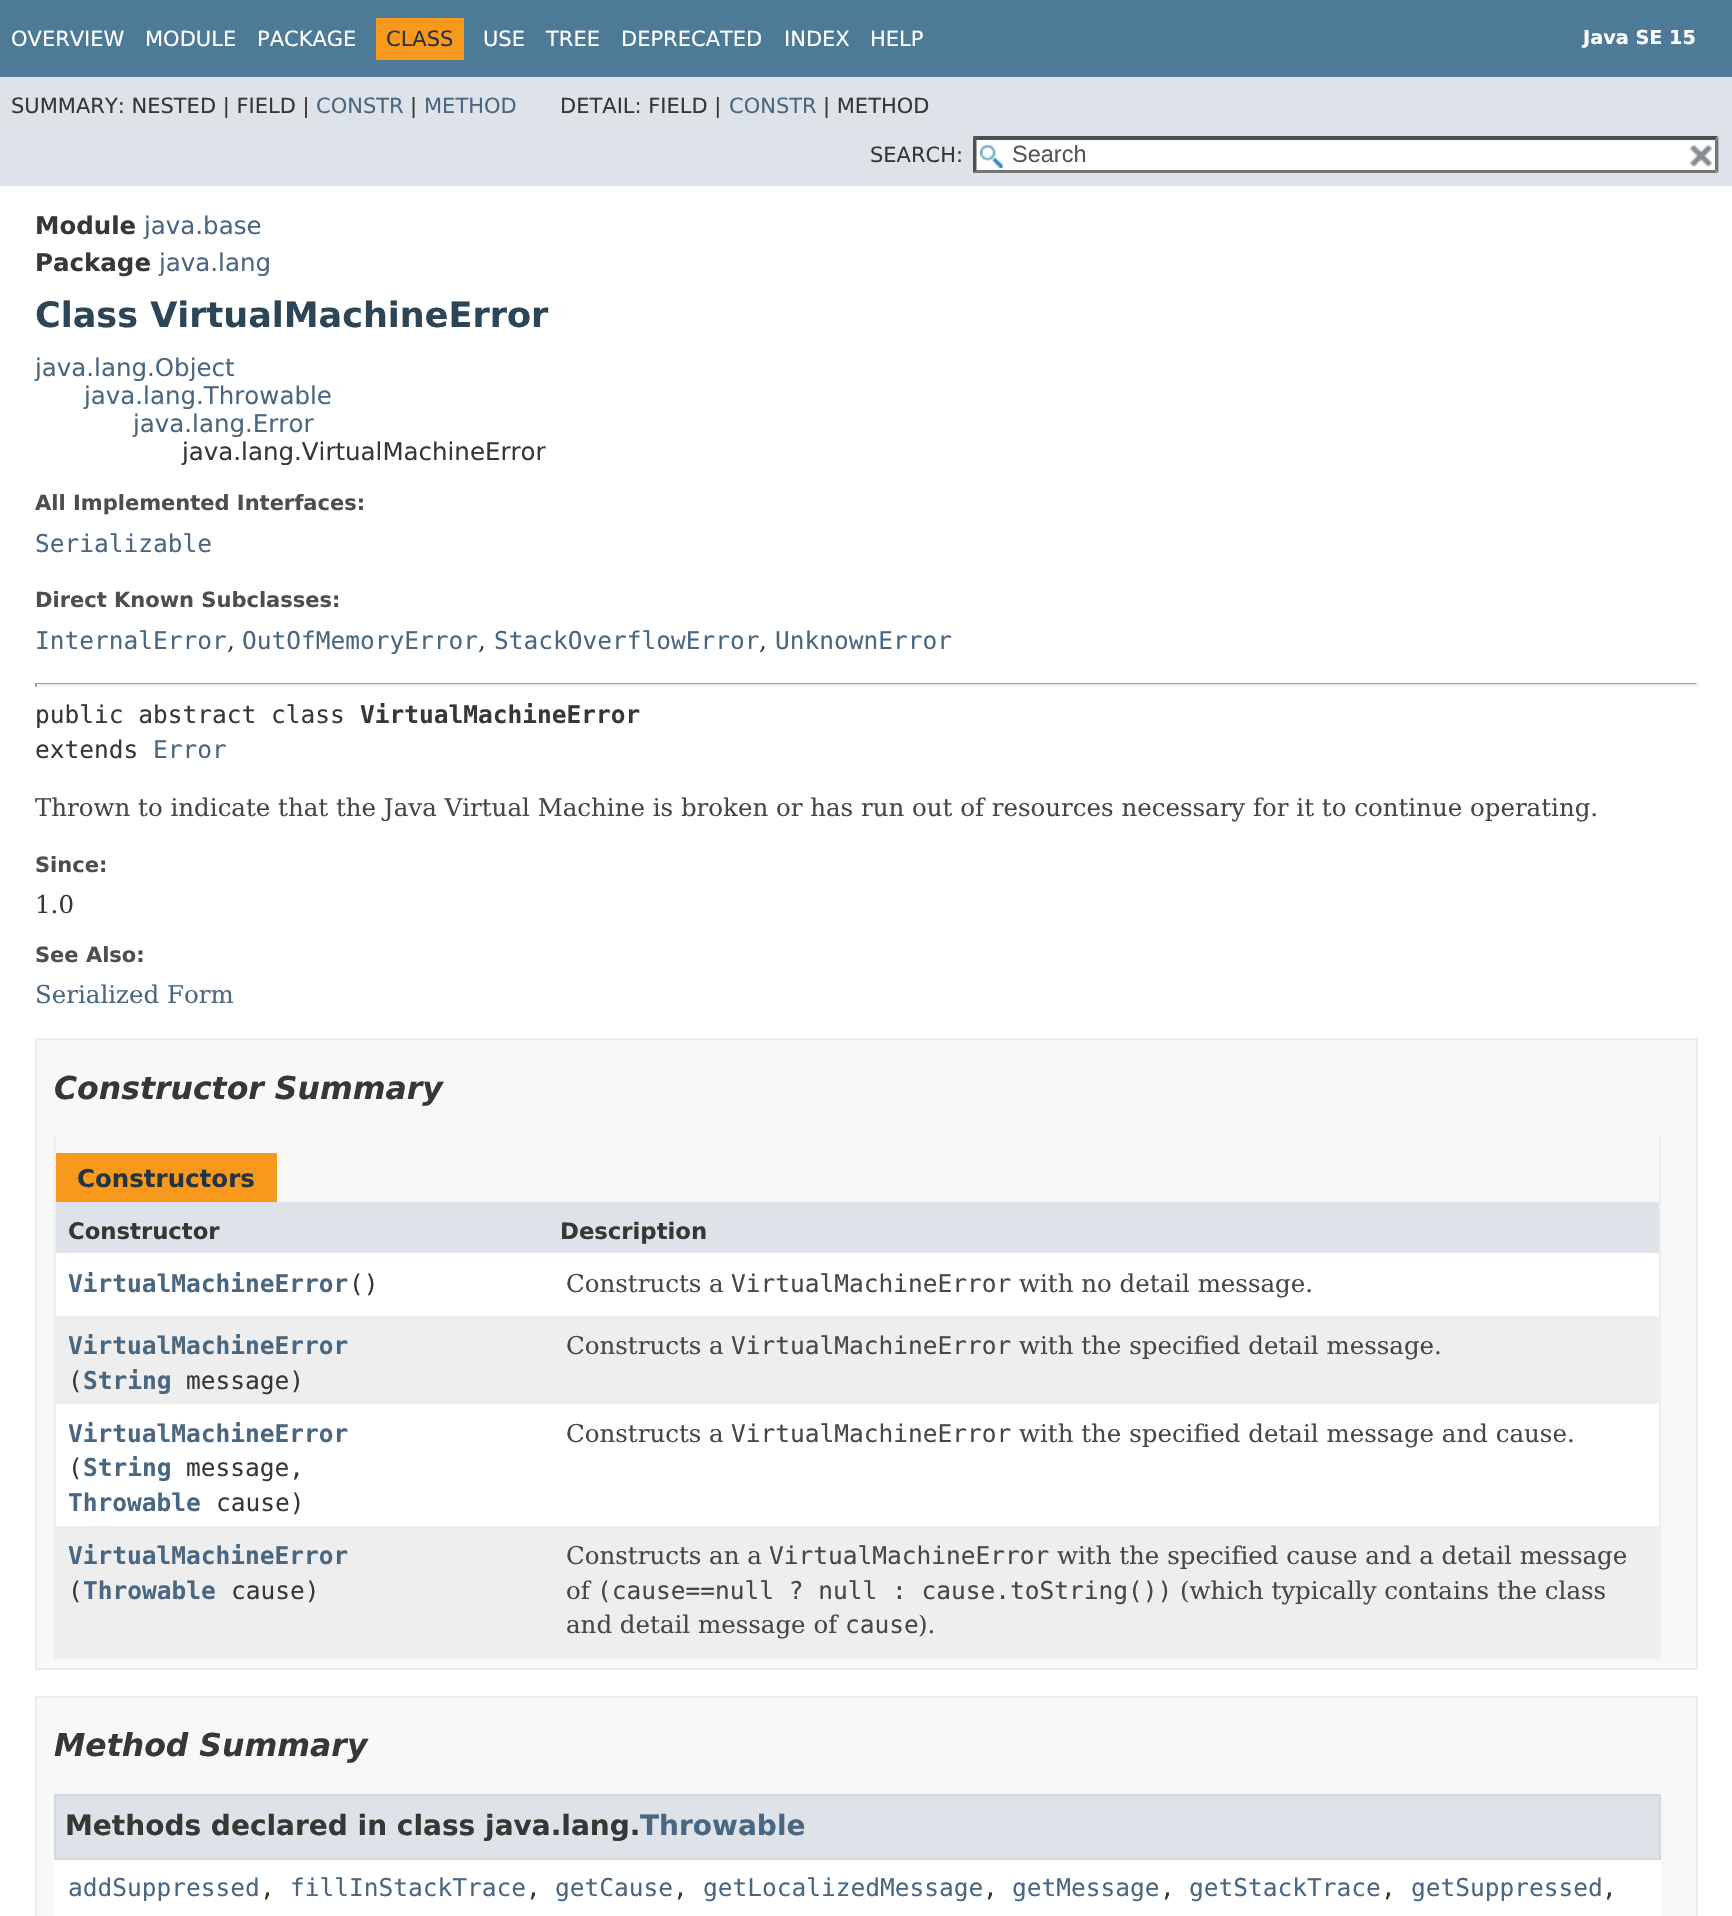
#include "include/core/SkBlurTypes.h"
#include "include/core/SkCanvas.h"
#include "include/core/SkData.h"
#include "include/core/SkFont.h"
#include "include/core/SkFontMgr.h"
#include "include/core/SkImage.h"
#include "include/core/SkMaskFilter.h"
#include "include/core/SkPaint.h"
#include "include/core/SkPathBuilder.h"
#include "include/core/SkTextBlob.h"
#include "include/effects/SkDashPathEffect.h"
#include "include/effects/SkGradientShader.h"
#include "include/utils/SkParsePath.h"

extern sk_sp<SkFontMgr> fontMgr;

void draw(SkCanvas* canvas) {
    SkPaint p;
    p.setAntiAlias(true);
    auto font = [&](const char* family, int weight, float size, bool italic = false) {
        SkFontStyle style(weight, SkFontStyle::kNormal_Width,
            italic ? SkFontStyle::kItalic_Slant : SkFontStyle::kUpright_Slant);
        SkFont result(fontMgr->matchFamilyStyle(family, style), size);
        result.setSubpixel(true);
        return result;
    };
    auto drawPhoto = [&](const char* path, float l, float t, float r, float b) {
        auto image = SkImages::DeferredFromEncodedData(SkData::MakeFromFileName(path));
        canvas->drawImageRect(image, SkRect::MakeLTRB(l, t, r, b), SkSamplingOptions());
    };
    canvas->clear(0xFFFFFFFF);
    p.setColor(0xFF4D7A97);
    canvas->drawRect(SkRect::MakeLTRB(0, 0, 1732, 77), p);
    auto font1 = font("DejaVu Sans", 400, 21);
    p.setColor(0xFFFFFFFF);
    {
        const struct { const char* s; float x, y; } items[] = {
            {"OVERVIEW", 11, 46},
            {"MODULE", 145, 46},
            {"PACKAGE", 257, 46},
        };
        for (auto [s, x, y] : items) {
            canvas->drawString(s, x, y, font1, p);
        }
    }
    p.setColor(0xFFF8981D);
    canvas->drawRect(SkRect::MakeLTRB(376, 18, 464, 60), p);
    p.setColor(0xFF253441);
    canvas->drawString("CLASS", 386, 46, font1, p);
    p.setColor(0xFFFFFFFF);
    {
        const struct { const char* s; float x, y; } items[] = {
            {"USE", 483, 46},
            {"TREE", 546, 46},
            {"DEPRECATED", 621, 46},
            {"INDEX", 784, 46},
            {"HELP", 870, 46},
        };
        for (auto [s, x, y] : items) {
            canvas->drawString(s, x, y, font1, p);
        }
    }
    auto font2 = font("DejaVu Sans", 700, 19.25f);
    canvas->drawString("Java SE 15", 1583, 44, font2, p);
    p.setColor(0xFFDEE3E9);
    canvas->drawRect(SkRect::MakeLTRB(0, 77, 1732, 186), p);
    p.setColor(0xFF353833);
    canvas->drawString("SUMMARY: NESTED | FIELD |", 11, 113, font1, p);
    p.setColor(0xFF4A6782);
    canvas->drawString("CONSTR", 316, 113, font1, p);
    p.setColor(0xFF353833);
    canvas->drawString("|", 410, 113, font1, p);
    p.setColor(0xFF4A6782);
    canvas->drawString("METHOD", 424, 113, font1, p);
    p.setColor(0xFF353833);
    canvas->drawString("DETAIL: FIELD |", 560, 113, font1, p);
    p.setColor(0xFF4A6782);
    canvas->drawString("CONSTR", 729, 113, font1, p);
    p.setColor(0xFF353833);
    canvas->drawString("| METHOD", 823, 113, font1, p);
    canvas->drawString("SEARCH:", 870, 162, font1, p);
    p.setColor(0xFFFFFFFF);
    canvas->drawRect(SkRect::MakeLTRB(973, 137, 1719, 173), p);
    drawPhoto("media/1.png", 980, 145, 1003, 168);
    p.setColor(0xFF4F4F4F);
    canvas->drawPath(SkPathBuilder().moveTo(973, 136).lineTo(1718, 136).lineTo(1715, 140).lineTo(976, 140).close().detach(), p);
    p.setColor(0xFF767676);
    canvas->drawPath(SkPathBuilder().moveTo(1718.5f, 136.5f).lineTo(1718.5f, 173).lineTo(1715, 170).lineTo(1715, 140).close().detach(), p);
    canvas->drawPath(SkPathBuilder().moveTo(1718, 173).lineTo(973, 173).lineTo(976, 170).lineTo(1715, 170).close().detach(), p);
    p.setColor(0xFF4F4F4F);
    canvas->drawPath(SkPathBuilder().moveTo(973, 173).lineTo(973, 136.5f).lineTo(976.5f, 140).lineTo(976.5f, 170).close().detach(), p);
    auto font3 = font("Liberation Sans", 400, 23.5f);
    p.setColor(0xFF545454);
    canvas->drawString("Search", 1012, 162, font3, p);
    drawPhoto("media/2.png", 1689, 145, 1713, 167);
    auto font4 = font("DejaVu Sans", 700, 24.5f);
    p.setColor(0xFF353833);
    canvas->drawString("Module", 35, 234, font4, p);
    auto font5 = font("DejaVu Sans", 400, 24.5f);
    p.setColor(0xFF4A6782);
    canvas->drawString("java.base", 144, 234, font5, p);
    p.setColor(0xFF353833);
    canvas->drawString("Package", 35, 271, font4, p);
    p.setColor(0xFF4A6782);
    canvas->drawString("java.lang", 159, 271, font5, p);
    auto font6 = font("DejaVu Sans", 700, 35);
    p.setColor(0xFF2C4557);
    canvas->drawString("Class VirtualMachineError", 35, 327, font6, p);
    p.setColor(0xFF4A6782);
    {
        const struct { const char* s; float x, y; } items[] = {
            {"java.lang.Object", 35, 376},
            {"java.lang.Throwable", 84, 404},
            {"java.lang.Error", 133, 432},
        };
        for (auto [s, x, y] : items) {
            canvas->drawString(s, x, y, font5, p);
        }
    }
    p.setColor(0xFF353833);
    canvas->drawString("java.lang.VirtualMachineError", 182, 460, font5, p);
    auto font7 = font("DejaVu Sans", 700, 21);
    p.setColor(0xFF4E4E4E);
    canvas->drawString("All Implemented Interfaces:", 35, 510, font7, p);
    auto font8 = font("DejaVu Sans Mono", 400, 24.5f);
    p.setColor(0xFF4A6782);
    canvas->drawString("Serializable", 35, 552, font8, p);
    p.setColor(0xFF4E4E4E);
    canvas->drawString("Direct Known Subclasses:", 35, 607, font7, p);
    p.setColor(0xFF4A6782);
    canvas->drawString("InternalError", 35, 649, font8, p);
    auto font9 = font("DejaVu Serif", 400, 24.5f);
    p.setColor(0xFF353833);
    canvas->drawString(",", 227, 649, font9, p);
    p.setColor(0xFF4A6782);
    canvas->drawString("OutOfMemoryError", 242, 649, font8, p);
    p.setColor(0xFF353833);
    canvas->drawString(",", 478, 649, font9, p);
    p.setColor(0xFF4A6782);
    canvas->drawString("StackOverflowError", 494, 649, font8, p);
    p.setColor(0xFF353833);
    canvas->drawString(",", 759, 649, font9, p);
    p.setColor(0xFF4A6782);
    canvas->drawString("UnknownError", 775, 649, font8, p);
    {
        const struct { float l, t, r, b; SkColor color; } items[] = {
            {35, 683, 1698, 684, 0xFF9F9F9F},
            {1696, 683, 1698, 687, 0xFFEEEEEE},
            {35, 684, 1698, 686, 0xFFEEEEEE},
            {35, 683, 37, 687, 0xFF9F9F9F},
        };
        for (auto [l, t, r, b, color] : items) {
            p.setColor(color);
            canvas->drawRect(SkRect::MakeLTRB(l, t, r, b), p);
        }
    }
    p.setColor(0xFF353833);
    canvas->drawString("public abstract class", 35, 723, font8, p);
    auto font10 = font("DejaVu Sans Mono", 700, 24.5f);
    canvas->drawString("VirtualMachineError", 360, 723, font10, p);
    canvas->drawString("extends", 35, 758, font8, p);
    p.setColor(0xFF4A6782);
    canvas->drawString("Error", 153, 758, font8, p);
    p.setColor(0xFF474747);
    canvas->drawString("Thrown to indicate that the Java Virtual Machine is broken or has run out of resources necessary for it to continue operating.", 35, 816, font9, p);
    p.setColor(0xFF4E4E4E);
    canvas->drawString("Since:", 35, 872, font7, p);
    p.setColor(0xFF353833);
    canvas->drawString("1.0", 35, 913, font9, p);
    p.setColor(0xFF4E4E4E);
    canvas->drawString("See Also:", 35, 962, font7, p);
    p.setColor(0xFF4A6782);
    canvas->drawString("Serialized Form", 35, 1003, font9, p);
    p.setColor(0xFFF8F8F8);
    canvas->drawRect(SkRect::MakeLTRB(36, 1039, 1697, 1669), p);
    p.setStyle(SkPaint::kStroke_Style);
    p.setStrokeWidth(2);
    p.setColor(0xFFEDEDED);
    canvas->drawRect(SkRect::MakeLTRB(36, 1039, 1697, 1669), p);
    auto font11 = font("DejaVu Sans", 700, 31.5f, true);
    p.setStyle(SkPaint::kFill_Style);
    p.setColor(0xFF353833);
    canvas->drawString("Constructor Summary", 54, 1099, font11, p);
    {
        const struct { float l, t, r, b; SkColor color; } items[] = {
            {1659, 1136, 1661, 1659, 0xFFEEEEEE},
            {54, 1657, 1661, 1659, 0xFFEEEEEE},
            {54, 1136, 56, 1659, 0xFFEEEEEE},
            {56, 1153, 277, 1202, 0xFFF8981D},
        };
        for (auto [l, t, r, b, color] : items) {
            p.setColor(color);
            canvas->drawRect(SkRect::MakeLTRB(l, t, r, b), p);
        }
    }
    p.setColor(0xFF253441);
    canvas->drawString("Constructors", 77, 1187, font4, p);
    p.setColor(0xFFDEE3E9);
    canvas->drawRect(SkRect::MakeLTRB(56, 1202, 1659, 1253), p);
    auto font12 = font("DejaVu Sans", 700, 22.75f);
    p.setColor(0xFF353833);
    canvas->drawString("Constructor", 68, 1239, font12, p);
    canvas->drawString("Description", 560, 1239, font12, p);
    p.setColor(0xFFFFFFFF);
    canvas->drawRect(SkRect::MakeLTRB(56, 1253, 1659, 1316), p);
    p.setColor(0xFF4A6782);
    canvas->drawString("VirtualMachineError", 68, 1292, font10, p);
    p.setColor(0xFF353833);
    canvas->drawString("()", 349, 1292, font8, p);
    p.setColor(0xFF474747);
    canvas->drawString("Constructs a", 566, 1292, font9, p);
    canvas->drawString("VirtualMachineError", 731, 1292, font8, p);
    canvas->drawString("with no detail message.", 1019, 1292, font9, p);
    p.setColor(0xFFEEEEEF);
    canvas->drawRect(SkRect::MakeLTRB(56, 1316, 1659, 1404), p);
    p.setColor(0xFF4A6782);
    canvas->drawString("VirtualMachineError", 68, 1354, font10, p);
    p.setColor(0xFF353833);
    canvas->drawString("(", 68, 1389, font8, p);
    p.setColor(0xFF4A6782);
    canvas->drawString("String", 83, 1389, font10, p);
    p.setColor(0xFF353833);
    canvas->drawString("message)", 186, 1389, font8, p);
    p.setColor(0xFF474747);
    canvas->drawString("Constructs a", 566, 1354, font9, p);
    canvas->drawString("VirtualMachineError", 731, 1354, font8, p);
    canvas->drawString("with the specified detail message.", 1019, 1354, font9, p);
    p.setColor(0xFFFFFFFF);
    canvas->drawRect(SkRect::MakeLTRB(56, 1404, 1659, 1526), p);
    p.setColor(0xFF4A6782);
    canvas->drawString("VirtualMachineError", 68, 1442, font10, p);
    p.setColor(0xFF353833);
    canvas->drawString("(", 68, 1476, font8, p);
    p.setColor(0xFF4A6782);
    canvas->drawString("String", 83, 1476, font10, p);
    p.setColor(0xFF353833);
    canvas->drawString("message,", 186, 1476, font8, p);
    p.setColor(0xFF4A6782);
    canvas->drawString("Throwable", 68, 1511, font10, p);
    p.setColor(0xFF353833);
    canvas->drawString("cause)", 216, 1511, font8, p);
    p.setColor(0xFF474747);
    canvas->drawString("Constructs a", 566, 1442, font9, p);
    canvas->drawString("VirtualMachineError", 731, 1442, font8, p);
    canvas->drawString("with the specified detail message and cause.", 1019, 1442, font9, p);
    p.setColor(0xFFEEEEEF);
    canvas->drawRect(SkRect::MakeLTRB(56, 1526, 1659, 1657), p);
    p.setColor(0xFF4A6782);
    canvas->drawString("VirtualMachineError", 68, 1564, font10, p);
    p.setColor(0xFF353833);
    canvas->drawString("(", 68, 1599, font8, p);
    p.setColor(0xFF4A6782);
    canvas->drawString("Throwable", 83, 1599, font10, p);
    p.setColor(0xFF353833);
    canvas->drawString("cause)", 231, 1599, font8, p);
    p.setColor(0xFF474747);
    canvas->drawString("Constructs an a", 566, 1564, font9, p);
    canvas->drawString("VirtualMachineError", 769, 1564, font8, p);
    canvas->drawString("with the specified cause and a detail message", 1057, 1564, font9, p);
    canvas->drawString("of", 566, 1599, font9, p);
    canvas->drawString("(cause==null ? null : cause.toString())", 597, 1599, font8, p);
    canvas->drawString("(which typically contains the class", 1180, 1599, font9, p);
    canvas->drawString("and detail message of", 566, 1633, font9, p);
    canvas->drawString("cause", 845, 1633, font8, p);
    canvas->drawString(").", 918, 1633, font9, p);
    p.setColor(0xFFF8F8F8);
    canvas->drawRect(SkRect::MakeLTRB(36, 1697, 1697, 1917), p);
    p.setStyle(SkPaint::kStroke_Style);
    p.setColor(0xFFEDEDED);
    canvas->drawRect(SkRect::MakeLTRB(36, 1697, 1697, 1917), p);
    p.setStyle(SkPaint::kFill_Style);
    p.setColor(0xFF353833);
    canvas->drawString("Method Summary", 54, 1756, font11, p);
    p.setColor(0xFFFFFFFF);
    canvas->drawRect(SkRect::MakeLTRB(54, 1860, 1661, 1916), p);
    p.setColor(0xFFDEE3E9);
    canvas->drawRect(SkRect::MakeLTRB(55, 1795, 1660, 1859), p);
    p.setStyle(SkPaint::kStroke_Style);
    p.setColor(0xFFD0D9E0);
    canvas->drawRect(SkRect::MakeLTRB(55, 1795, 1660, 1859), p);
    auto font13 = font("DejaVu Sans", 700, 28);
    p.setStyle(SkPaint::kFill_Style);
    p.setColor(0xFF353833);
    canvas->drawString("Methods declared in class java.lang.", 65, 1835, font13, p);
    p.setColor(0xFF4A6782);
    canvas->drawString("Throwable", 640, 1835, font13, p);
    canvas->drawString("addSuppressed", 68, 1896, font8, p);
    p.setColor(0xFF353833);
    canvas->drawString(",", 260, 1896, font8, p);
    p.setColor(0xFF4A6782);
    canvas->drawString("fillInStackTrace", 290, 1896, font8, p);
    p.setColor(0xFF353833);
    canvas->drawString(",", 526, 1896, font8, p);
    p.setColor(0xFF4A6782);
    canvas->drawString("getCause", 555, 1896, font8, p);
    p.setColor(0xFF353833);
    canvas->drawString(",", 673, 1896, font8, p);
    p.setColor(0xFF4A6782);
    canvas->drawString("getLocalizedMessage", 703, 1896, font8, p);
    p.setColor(0xFF353833);
    canvas->drawString(",", 983, 1896, font8, p);
    p.setColor(0xFF4A6782);
    canvas->drawString("getMessage", 1012, 1896, font8, p);
    p.setColor(0xFF353833);
    canvas->drawString(",", 1160, 1896, font8, p);
    p.setColor(0xFF4A6782);
    canvas->drawString("getStackTrace", 1189, 1896, font8, p);
    p.setColor(0xFF353833);
    canvas->drawString(",", 1381, 1896, font8, p);
    p.setColor(0xFF4A6782);
    canvas->drawString("getSuppressed", 1411, 1896, font8, p);
    p.setColor(0xFF353833);
    canvas->drawString(",", 1602, 1896, font8, p);
}
